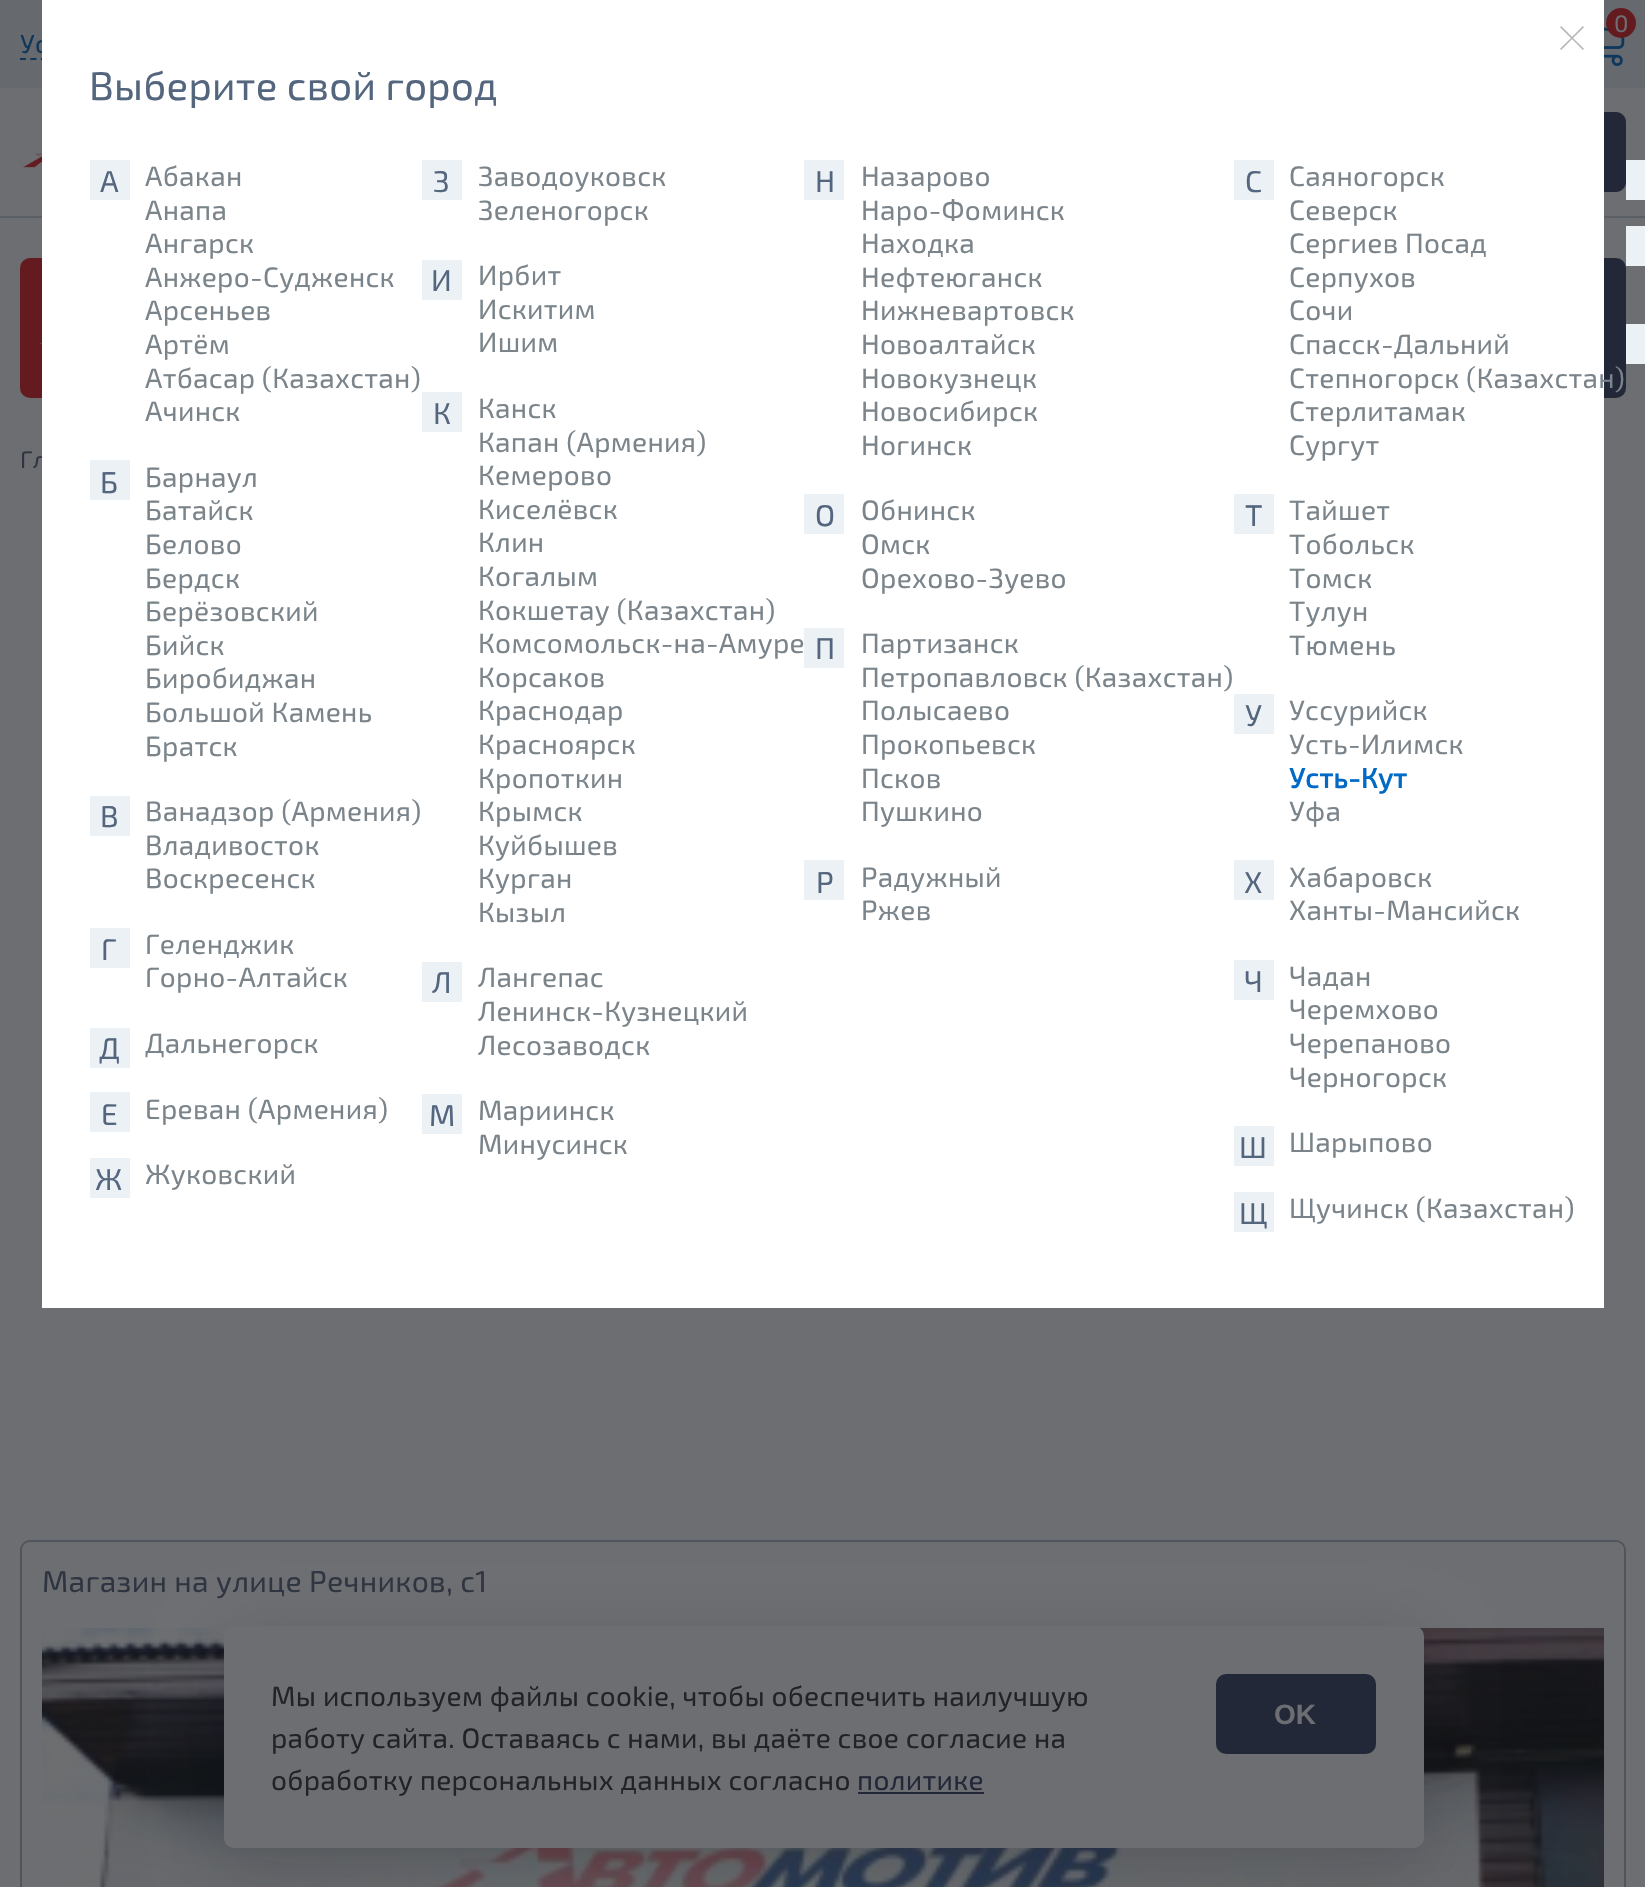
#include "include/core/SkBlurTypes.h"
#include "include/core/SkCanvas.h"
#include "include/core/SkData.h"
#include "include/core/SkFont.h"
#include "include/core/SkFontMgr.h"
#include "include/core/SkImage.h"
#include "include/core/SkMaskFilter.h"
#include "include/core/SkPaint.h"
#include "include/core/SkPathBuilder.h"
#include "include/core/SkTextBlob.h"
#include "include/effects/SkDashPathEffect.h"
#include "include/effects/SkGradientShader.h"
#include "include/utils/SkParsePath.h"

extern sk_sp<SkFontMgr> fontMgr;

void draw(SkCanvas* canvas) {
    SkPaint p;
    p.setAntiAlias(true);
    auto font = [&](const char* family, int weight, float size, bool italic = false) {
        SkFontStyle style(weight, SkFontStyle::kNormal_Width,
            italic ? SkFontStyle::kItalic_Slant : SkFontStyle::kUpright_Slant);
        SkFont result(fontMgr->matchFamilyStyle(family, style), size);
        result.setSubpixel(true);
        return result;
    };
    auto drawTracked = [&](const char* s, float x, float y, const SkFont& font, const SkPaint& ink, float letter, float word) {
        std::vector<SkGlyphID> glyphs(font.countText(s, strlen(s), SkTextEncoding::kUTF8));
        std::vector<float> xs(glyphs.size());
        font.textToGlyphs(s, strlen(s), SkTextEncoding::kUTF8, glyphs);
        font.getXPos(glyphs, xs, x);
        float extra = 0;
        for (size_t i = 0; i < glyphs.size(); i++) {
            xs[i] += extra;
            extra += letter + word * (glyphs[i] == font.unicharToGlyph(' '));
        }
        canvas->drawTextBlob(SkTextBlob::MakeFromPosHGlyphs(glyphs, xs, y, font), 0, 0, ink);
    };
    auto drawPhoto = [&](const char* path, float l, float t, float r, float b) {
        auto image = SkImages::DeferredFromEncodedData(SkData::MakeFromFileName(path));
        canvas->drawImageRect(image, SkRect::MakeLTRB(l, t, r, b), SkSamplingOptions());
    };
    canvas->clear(0xFF6D6E71);
    p.setColor(0xFF66696D);
    canvas->drawRect(SkRect::MakeLTRB(0, 0, 1645, 88), p);
    drawPhoto("media/1.png", 1604, 27, 1625, 66);
    p.setColor(0xFF631B20);
    canvas->drawCircle(1621, 23, 15, p);
    auto font1 = font("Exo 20", 400, 24);
    p.setColor(0xFF6D6E71);
    drawTracked("0", 1614, 32, font1, p, 0.3f, 0);
    auto font2 = font("Exo 20", 400, 26);
    p.setColor(0xFF0F375B);
    drawTracked("Ус", 20, 53, font2, p, 0.3f, 0);
    p.setStyle(SkPaint::kStroke_Style);
    p.setStrokeWidth(2);
    p.setPathEffect(SkDashPathEffect::Make({{6, 4.4f}}, 0));
    canvas->drawPath(SkPathBuilder().moveTo(20, 59).lineTo(130, 59).detach(), p);
    p.setPathEffect(nullptr);
    p.setStyle(SkPaint::kFill_Style);
    p.setColor(0xFF5A5E65);
    canvas->drawRect(SkRect::MakeLTRB(0, 216, 1645, 218), p);
    p.setColor(0xFF222837);
    canvas->drawPath(SkPathBuilder().moveTo(1536, 112).lineTo(1616, 112).cubicTo(1621.5f, 112, 1626, 116.5f, 1626, 122).lineTo(1626, 182).cubicTo(1626, 187.5f, 1621.5f, 192, 1616, 192).lineTo(1536, 192).close().detach(), p);
    p.setColor(0xFF631B20);
    canvas->drawRoundRect(SkRect::MakeLTRB(20, 258, 806, 398), 10, 10, p);
    p.setColor(0xFF222837);
    canvas->drawRoundRect(SkRect::MakeLTRB(840, 258, 1626, 398), 10, 10, p);
    p.setColor(0xFF2E3541);
    drawTracked("Гл", 20, 468, font1, p, 0.3f, 0);
    p.setColor(0xFFFFFFFF);
    canvas->drawRect(SkRect::MakeLTRB(42, 0, 1604, 1308), p);
    drawPhoto("media/2.png", 1560, 26, 1584, 50);
    auto font3 = font("Exo 20", 400, 40);
    p.setColor(0xFF54657E);
    drawTracked("Выберите свой город", 89, 100, font3, p, 0.3f, 0);
    p.setColor(0xFFEBF1F5);
    canvas->drawRect(SkRect::MakeLTRB(90, 160, 130, 200), p);
    auto font4 = font("Exo 20", 400, 30);
    p.setColor(0xFF54657E);
    drawTracked("А", 100, 192, font4, p, 0.3f, 0);
    auto font5 = font("Exo 20", 400, 28);
    p.setColor(0xFF7A848A);
    {
        const struct { const char* s; float x, y; } items[] = {
            {"Абакан", 145, 186},
            {"Анапа", 145, 220},
            {"Ангарск", 145, 253},
            {"Анжеро-Судженск", 145, 287},
            {"Арсеньев", 145, 320},
            {"Артём", 145, 354},
            {"Атбасар (Казахстан)", 145, 388},
            {"Ачинск", 145, 421},
        };
        for (auto [s, x, y] : items) {
            drawTracked(s, x, y, font5, p, 0.3f, 0);
        }
    }
    p.setColor(0xFFEBF1F5);
    canvas->drawRect(SkRect::MakeLTRB(422, 160, 462, 200), p);
    p.setColor(0xFF54657E);
    drawTracked("З", 433, 192, font4, p, 0.3f, 0);
    p.setColor(0xFF7A848A);
    drawTracked("Заводоуковск", 478, 186, font5, p, 0.3f, 0);
    drawTracked("Зеленогорск", 478, 220, font5, p, 0.3f, 0);
    p.setColor(0xFFEBF1F5);
    canvas->drawRect(SkRect::MakeLTRB(804, 160, 844, 200), p);
    p.setColor(0xFF54657E);
    drawTracked("Н", 815, 192, font4, p, 0.3f, 0);
    p.setColor(0xFF7A848A);
    {
        const struct { const char* s; float x, y; } items[] = {
            {"Назарово", 861, 186},
            {"Наро-Фоминск", 861, 220},
            {"Находка", 861, 253},
            {"Нефтеюганск", 861, 287},
            {"Нижневартовск", 861, 320},
            {"Новоалтайск", 861, 354},
            {"Новокузнецк", 861, 388},
            {"Новосибирск", 861, 421},
            {"Ногинск", 861, 455},
        };
        for (auto [s, x, y] : items) {
            drawTracked(s, x, y, font5, p, 0.3f, 0);
        }
    }
    p.setColor(0xFFEBF1F5);
    canvas->drawRect(SkRect::MakeLTRB(1234, 160, 1274, 200), p);
    p.setColor(0xFF54657E);
    drawTracked("С", 1245, 192, font4, p, 0.3f, 0);
    p.setColor(0xFF7A848A);
    {
        const struct { const char* s; float x, y; } items[] = {
            {"Саяногорск", 1289, 186},
            {"Северск", 1289, 220},
            {"Сергиев Посад", 1289, 253},
            {"Серпухов", 1289, 287},
            {"Сочи", 1289, 320},
            {"Спасск-Дальний", 1289, 354},
            {"Степногорск (Казахстан)", 1289, 388},
            {"Стерлитамак", 1289, 421},
            {"Сургут", 1289, 455},
        };
        for (auto [s, x, y] : items) {
            drawTracked(s, x, y, font5, p, 0.3f, 0);
        }
    }
    {
        const struct { float l, t, r, b; SkColor color; } items[] = {
            {1626, 160, 1645, 200, 0xFFEBF1F5},
            {1626, 226, 1645, 266, 0xFFEBF1F5},
            {422, 260, 462, 300, 0xFFEBF1F5},
        };
        for (auto [l, t, r, b, color] : items) {
            p.setColor(color);
            canvas->drawRect(SkRect::MakeLTRB(l, t, r, b), p);
        }
    }
    p.setColor(0xFF54657E);
    drawTracked("И", 431, 291, font4, p, 0.3f, 0);
    p.setColor(0xFF7A848A);
    {
        const struct { const char* s; float x, y; } items[] = {
            {"Ирбит", 478, 285},
            {"Искитим", 478, 319},
            {"Ишим", 478, 352},
        };
        for (auto [s, x, y] : items) {
            drawTracked(s, x, y, font5, p, 0.3f, 0);
        }
    }
    p.setColor(0xFFEBF1F5);
    canvas->drawRect(SkRect::MakeLTRB(1626, 324, 1645, 364), p);
    canvas->drawRect(SkRect::MakeLTRB(90, 460, 130, 500), p);
    p.setColor(0xFF54657E);
    drawTracked("Б", 100, 493, font4, p, 0.3f, 0);
    p.setColor(0xFF7A848A);
    {
        const struct { const char* s; float x, y; } items[] = {
            {"Барнаул", 145, 487},
            {"Батайск", 145, 520},
            {"Белово", 145, 554},
            {"Бердск", 145, 588},
            {"Берёзовский", 145, 621},
            {"Бийск", 145, 655},
            {"Биробиджан", 145, 688},
            {"Большой Камень", 145, 722},
            {"Братск", 145, 756},
        };
        for (auto [s, x, y] : items) {
            drawTracked(s, x, y, font5, p, 0.3f, 0);
        }
    }
    p.setColor(0xFFEBF1F5);
    canvas->drawRect(SkRect::MakeLTRB(422, 392, 462, 432), p);
    p.setColor(0xFF54657E);
    drawTracked("К", 433, 424, font4, p, 0.3f, 0);
    p.setColor(0xFF7A848A);
    {
        const struct { const char* s; float x, y; } items[] = {
            {"Канск", 478, 418},
            {"Капан (Армения)", 478, 452},
            {"Кемерово", 478, 485},
            {"Киселёвск", 478, 519},
            {"Клин", 478, 552},
            {"Когалым", 478, 586},
            {"Кокшетау (Казахстан)", 478, 620},
            {"Комсомольск-на-Амуре", 478, 653},
            {"Корсаков", 478, 687},
            {"Краснодар", 478, 720},
            {"Красноярск", 478, 754},
            {"Кропоткин", 478, 788},
            {"Крымск", 478, 821},
            {"Куйбышев", 478, 855},
            {"Курган", 478, 888},
            {"Кызыл", 478, 922},
        };
        for (auto [s, x, y] : items) {
            drawTracked(s, x, y, font5, p, 0.3f, 0);
        }
    }
    p.setColor(0xFFEBF1F5);
    canvas->drawRect(SkRect::MakeLTRB(804, 494, 844, 534), p);
    p.setColor(0xFF54657E);
    drawTracked("О", 815, 526, font4, p, 0.3f, 0);
    p.setColor(0xFF7A848A);
    {
        const struct { const char* s; float x, y; } items[] = {
            {"Обнинск", 861, 520},
            {"Омск", 861, 554},
            {"Орехово-Зуево", 861, 588},
        };
        for (auto [s, x, y] : items) {
            drawTracked(s, x, y, font5, p, 0.3f, 0);
        }
    }
    p.setColor(0xFFEBF1F5);
    canvas->drawRect(SkRect::MakeLTRB(1234, 494, 1274, 534), p);
    p.setColor(0xFF54657E);
    drawTracked("Т", 1245, 526, font4, p, 0.3f, 0);
    p.setColor(0xFF7A848A);
    {
        const struct { const char* s; float x, y; } items[] = {
            {"Тайшет", 1289, 520},
            {"Тобольск", 1289, 554},
            {"Томск", 1289, 588},
            {"Тулун", 1289, 621},
            {"Тюмень", 1289, 655},
        };
        for (auto [s, x, y] : items) {
            drawTracked(s, x, y, font5, p, 0.3f, 0);
        }
    }
    p.setColor(0xFFEBF1F5);
    canvas->drawRect(SkRect::MakeLTRB(804, 628, 844, 668), p);
    p.setColor(0xFF54657E);
    drawTracked("П", 815, 659, font4, p, 0.3f, 0);
    p.setColor(0xFF7A848A);
    {
        const struct { const char* s; float x, y; } items[] = {
            {"Партизанск", 861, 653},
            {"Петропавловск (Казахстан)", 861, 687},
            {"Полысаево", 861, 720},
            {"Прокопьевск", 861, 754},
            {"Псков", 861, 788},
            {"Пушкино", 861, 821},
        };
        for (auto [s, x, y] : items) {
            drawTracked(s, x, y, font5, p, 0.3f, 0);
        }
    }
    p.setColor(0xFFEBF1F5);
    canvas->drawRect(SkRect::MakeLTRB(1234, 694, 1274, 734), p);
    p.setColor(0xFF54657E);
    drawTracked("У", 1245, 726, font4, p, 0.3f, 0);
    p.setColor(0xFF7A848A);
    drawTracked("Уссурийск", 1289, 720, font5, p, 0.3f, 0);
    drawTracked("Усть-Илимск", 1289, 754, font5, p, 0.3f, 0);
    auto font6 = font("Exo 20", 700, 28);
    p.setColor(0xFF006AC5);
    drawTracked("Усть-Кут", 1289, 788, font6, p, 0.3f, 0);
    p.setColor(0xFF7A848A);
    drawTracked("Уфа", 1289, 821, font5, p, 0.3f, 0);
    p.setColor(0xFFEBF1F5);
    canvas->drawRect(SkRect::MakeLTRB(90, 796, 130, 836), p);
    p.setColor(0xFF54657E);
    drawTracked("В", 100, 827, font4, p, 0.3f, 0);
    p.setColor(0xFF7A848A);
    {
        const struct { const char* s; float x, y; } items[] = {
            {"Ванадзор (Армения)", 145, 821},
            {"Владивосток", 145, 855},
            {"Воскресенск", 145, 888},
        };
        for (auto [s, x, y] : items) {
            drawTracked(s, x, y, font5, p, 0.3f, 0);
        }
    }
    p.setColor(0xFFEBF1F5);
    canvas->drawRect(SkRect::MakeLTRB(804, 860, 844, 900), p);
    p.setColor(0xFF54657E);
    drawTracked("Р", 816, 893, font4, p, 0.3f, 0);
    p.setColor(0xFF7A848A);
    drawTracked("Радужный", 861, 887, font5, p, 0.3f, 0);
    drawTracked("Ржев", 861, 920, font5, p, 0.3f, 0);
    p.setColor(0xFFEBF1F5);
    canvas->drawRect(SkRect::MakeLTRB(1234, 860, 1274, 900), p);
    p.setColor(0xFF54657E);
    drawTracked("Х", 1244, 893, font4, p, 0.3f, 0);
    p.setColor(0xFF7A848A);
    drawTracked("Хабаровск", 1289, 887, font5, p, 0.3f, 0);
    drawTracked("Ханты-Мансийск", 1289, 920, font5, p, 0.3f, 0);
    p.setColor(0xFFEBF1F5);
    canvas->drawRect(SkRect::MakeLTRB(90, 928, 130, 968), p);
    p.setColor(0xFF54657E);
    drawTracked("Г", 101, 960, font4, p, 0.3f, 0);
    p.setColor(0xFF7A848A);
    drawTracked("Геленджик", 145, 954, font5, p, 0.3f, 0);
    drawTracked("Горно-Алтайск", 145, 987, font5, p, 0.3f, 0);
    p.setColor(0xFFEBF1F5);
    canvas->drawRect(SkRect::MakeLTRB(422, 962, 462, 1002), p);
    p.setColor(0xFF54657E);
    drawTracked("Л", 432, 993, font4, p, 0.3f, 0);
    p.setColor(0xFF7A848A);
    {
        const struct { const char* s; float x, y; } items[] = {
            {"Лангепас", 478, 987},
            {"Ленинск-Кузнецкий", 478, 1021},
            {"Лесозаводск", 478, 1055},
        };
        for (auto [s, x, y] : items) {
            drawTracked(s, x, y, font5, p, 0.3f, 0);
        }
    }
    p.setColor(0xFFEBF1F5);
    canvas->drawRect(SkRect::MakeLTRB(1234, 960, 1274, 1000), p);
    p.setColor(0xFF54657E);
    drawTracked("Ч", 1244, 992, font4, p, 0.3f, 0);
    p.setColor(0xFF7A848A);
    {
        const struct { const char* s; float x, y; } items[] = {
            {"Чадан", 1289, 986},
            {"Черемхово", 1289, 1019},
            {"Черепаново", 1289, 1053},
            {"Черногорск", 1289, 1087},
        };
        for (auto [s, x, y] : items) {
            drawTracked(s, x, y, font5, p, 0.3f, 0);
        }
    }
    p.setColor(0xFFEBF1F5);
    canvas->drawRect(SkRect::MakeLTRB(90, 1028, 130, 1068), p);
    p.setColor(0xFF54657E);
    drawTracked("Д", 99, 1059, font4, p, 0.3f, 0);
    p.setColor(0xFF7A848A);
    drawTracked("Дальнегорск", 145, 1053, font5, p, 0.3f, 0);
    p.setColor(0xFFEBF1F5);
    canvas->drawRect(SkRect::MakeLTRB(90, 1092, 130, 1132), p);
    p.setColor(0xFF54657E);
    drawTracked("Е", 101, 1125, font4, p, 0.3f, 0);
    p.setColor(0xFF7A848A);
    drawTracked("Ереван (Армения)", 145, 1119, font5, p, 0.3f, 0);
    p.setColor(0xFFEBF1F5);
    canvas->drawRect(SkRect::MakeLTRB(422, 1094, 462, 1134), p);
    p.setColor(0xFF54657E);
    drawTracked("М", 429, 1126, font4, p, 0.3f, 0);
    p.setColor(0xFF7A848A);
    drawTracked("Мариинск", 478, 1120, font5, p, 0.3f, 0);
    drawTracked("Минусинск", 478, 1154, font5, p, 0.3f, 0);
    p.setColor(0xFFEBF1F5);
    canvas->drawRect(SkRect::MakeLTRB(1234, 1126, 1274, 1166), p);
    p.setColor(0xFF54657E);
    drawTracked("Ш", 1239, 1158, font4, p, 0.3f, 0);
    p.setColor(0xFF7A848A);
    drawTracked("Шарыпово", 1289, 1152, font5, p, 0.3f, 0);
    p.setColor(0xFFEBF1F5);
    canvas->drawRect(SkRect::MakeLTRB(90, 1158, 130, 1198), p);
    p.setColor(0xFF54657E);
    drawTracked("Ж", 95, 1190, font4, p, 0.3f, 0);
    p.setColor(0xFF7A848A);
    drawTracked("Жуковский", 145, 1184, font5, p, 0.3f, 0);
    p.setColor(0xFFEBF1F5);
    canvas->drawRect(SkRect::MakeLTRB(1234, 1192, 1274, 1232), p);
    p.setColor(0xFF54657E);
    drawTracked("Щ", 1239, 1224, font4, p, 0.3f, 0);
    p.setColor(0xFF7A848A);
    drawTracked("Щучинск (Казахстан)", 1289, 1218, font5, p, 0.3f, 0);
    drawPhoto("media/3.png", 23, 153, 42, 168);
    drawPhoto("media/4.png", 40, 342, 42, 344);
    p.setStyle(SkPaint::kStroke_Style);
    p.setColor(0xFF4F545D);
    canvas->drawRoundRect(SkRect::MakeLTRB(21, 1541, 1625, 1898), 9, 9, p);
    p.setStyle(SkPaint::kFill_Style);
    p.setColor(0xFF2E3541);
    drawTracked("Магазин на улице Речников, с1", 42, 1592, font4, p, 0.3f, 0);
    drawPhoto("media/5.png", 42, 1628, 1604, 1887);
    p.setColor(0x260F1012);
    p.setMaskFilter(SkMaskFilter::MakeBlur(kNormal_SkBlurStyle, 32));
    canvas->drawRoundRect(SkRect::MakeLTRB(224, 1642, 1424, 1864), 10, 10, p);
    p.setMaskFilter(nullptr);
    p.setColor(0xFF6D6E71);
    canvas->drawRoundRect(SkRect::MakeLTRB(224, 1626, 1424, 1848), 10, 10, p);
    p.setColor(0xFF222325);
    {
        const struct { const char* s; float x, y; } items[] = {
            {"Мы используем файлы cookie, чтобы обеспечить наилучшую", 271, 1706},
            {"работу сайта. Оставаясь с нами, вы даёте свое согласие на", 271, 1748},
            {"обработку персональных данных согласно", 271, 1790},
        };
        for (auto [s, x, y] : items) {
            drawTracked(s, x, y, font5, p, 0.3f, 0);
        }
    }
    p.setColor(0xFF222837);
    drawTracked("политике", 857, 1790, font5, p, 0.3f, 0);
    canvas->drawRect(SkRect::MakeLTRB(858, 1792, 984, 1794), p);
    canvas->drawRoundRect(SkRect::MakeLTRB(1216, 1674, 1376, 1754), 10, 10, p);
    auto font7 = font("Liberation Sans", 700, 28);
    p.setColor(0xFF6D6E71);
    canvas->drawString("OK", 1274, 1724, font7, p);
}
